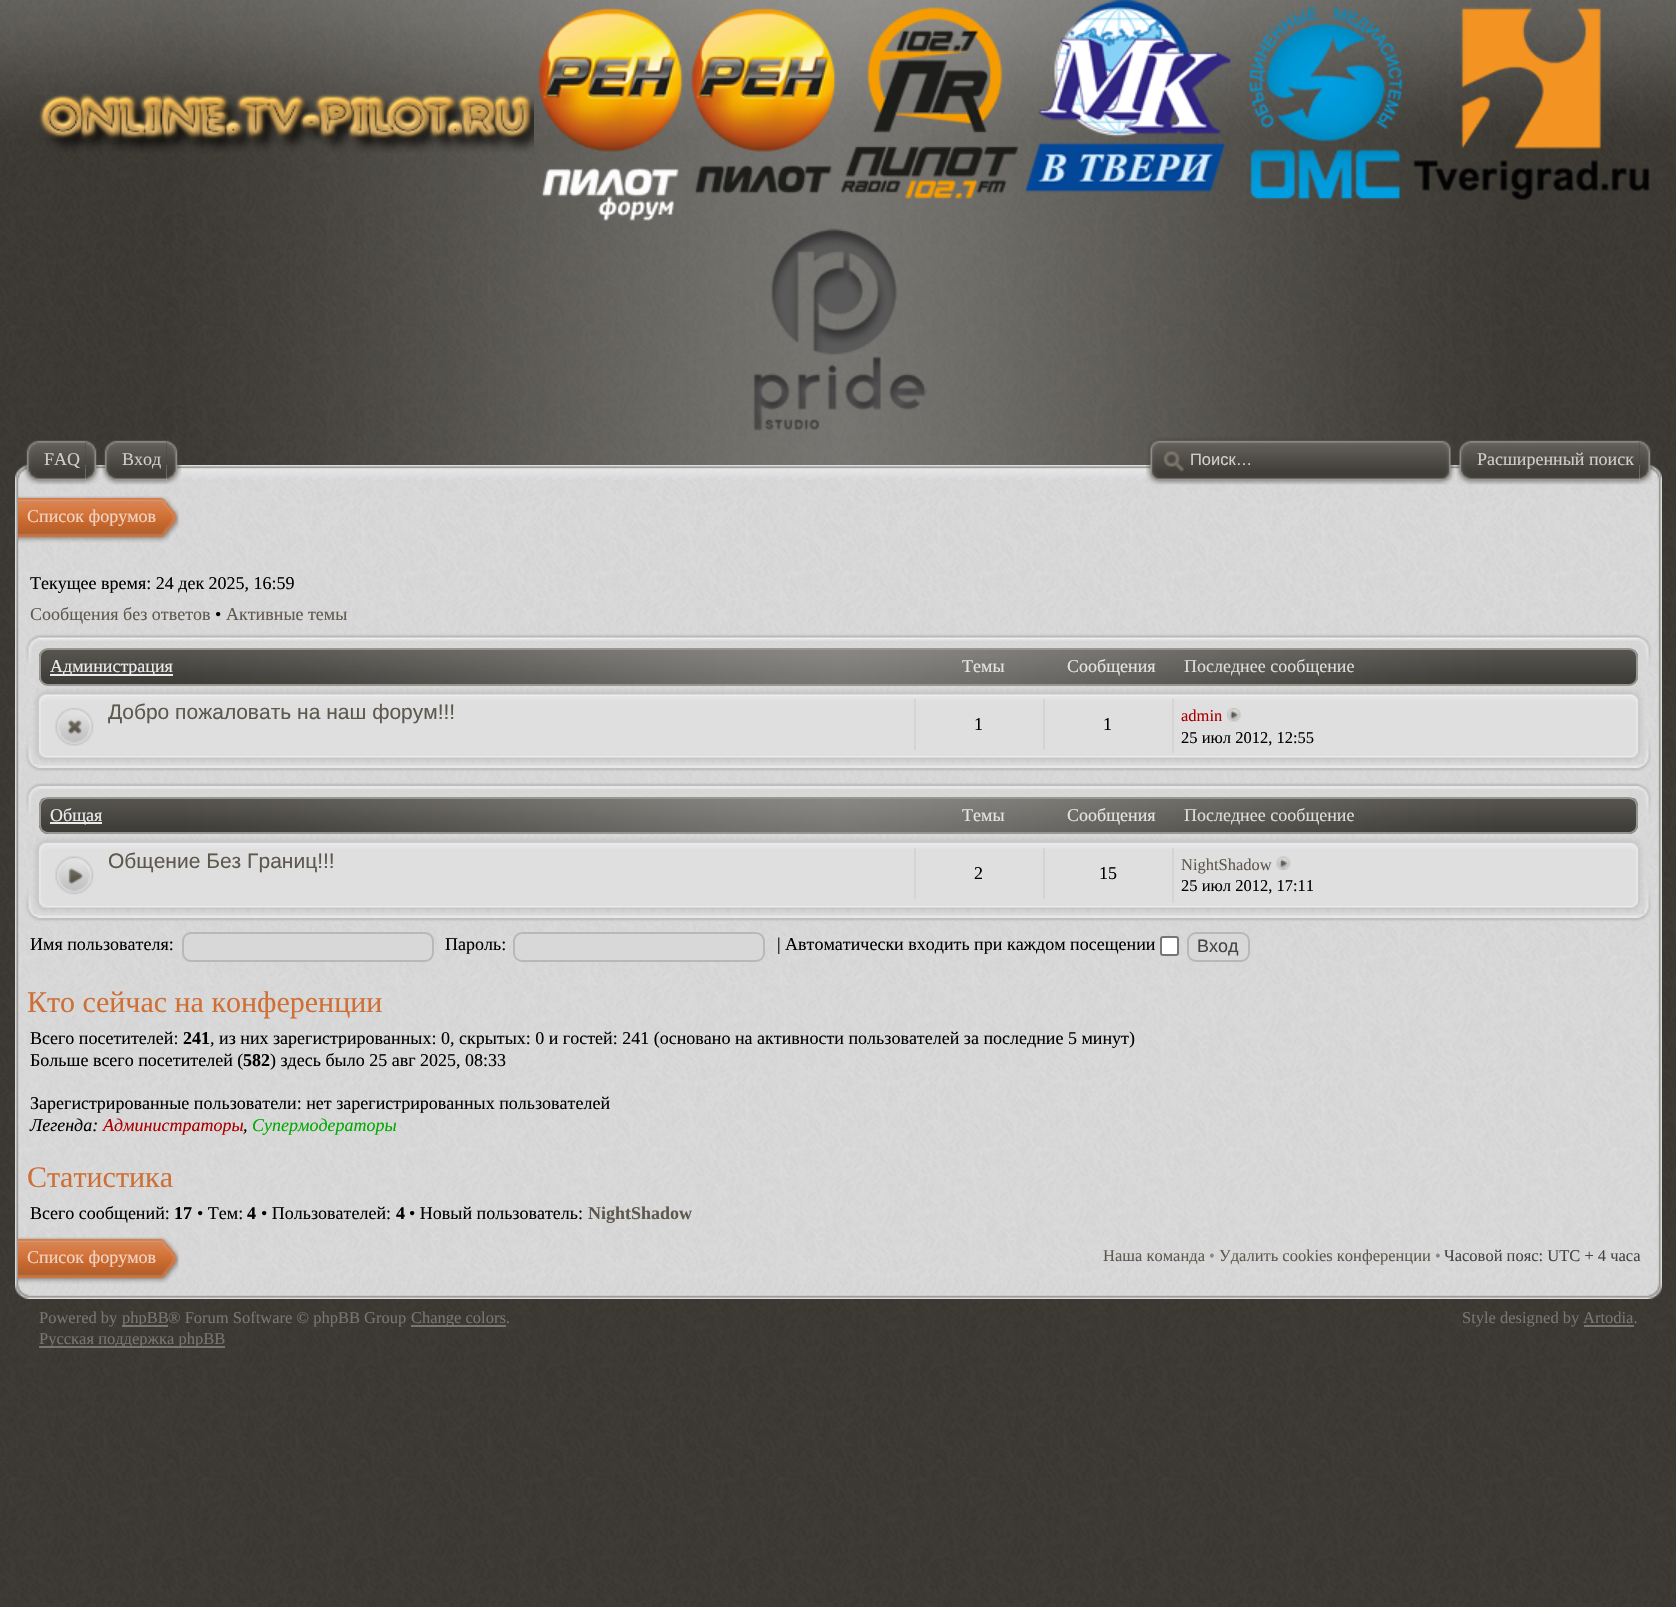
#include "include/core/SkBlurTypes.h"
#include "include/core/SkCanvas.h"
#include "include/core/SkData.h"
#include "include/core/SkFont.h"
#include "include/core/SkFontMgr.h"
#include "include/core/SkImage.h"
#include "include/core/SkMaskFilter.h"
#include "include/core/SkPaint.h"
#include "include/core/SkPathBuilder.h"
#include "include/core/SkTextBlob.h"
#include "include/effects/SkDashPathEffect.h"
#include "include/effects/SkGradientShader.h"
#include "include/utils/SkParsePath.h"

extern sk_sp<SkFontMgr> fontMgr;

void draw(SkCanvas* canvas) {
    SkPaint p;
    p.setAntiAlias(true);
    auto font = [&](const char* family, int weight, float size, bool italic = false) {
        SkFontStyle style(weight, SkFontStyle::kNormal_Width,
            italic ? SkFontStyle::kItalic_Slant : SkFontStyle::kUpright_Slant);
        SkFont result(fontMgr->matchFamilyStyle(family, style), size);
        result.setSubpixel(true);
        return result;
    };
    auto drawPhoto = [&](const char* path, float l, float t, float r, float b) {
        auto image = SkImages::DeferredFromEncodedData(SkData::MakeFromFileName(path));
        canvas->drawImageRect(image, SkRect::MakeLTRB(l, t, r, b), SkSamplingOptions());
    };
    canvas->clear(0xFFFFFFFF);
    drawPhoto("media/1.png", 0, 0, 1676, 1607);
    drawPhoto("media/2.png", 0, 0, 1676, 465);
    drawPhoto("media/3.png", 38, 93, 534, 153);
    drawPhoto("media/4.png", 538, 8, 683, 221);
    drawPhoto("media/5.png", 691, 8, 836, 194);
    drawPhoto("media/6.png", 841, 7, 1019, 199);
    drawPhoto("media/7.png", 1024, 0, 1231, 193);
    drawPhoto("media/8.png", 1249, 7, 1403, 200);
    drawPhoto("media/9.png", 1413, 7, 1650, 200);
    drawPhoto("media/10.png", 753, 228, 927, 431);
    drawPhoto("media/11.png", 15, 465, 1662, 480);
    p.setColor(0xFFDADADA);
    canvas->drawRect(SkRect::MakeLTRB(15, 480, 1662, 1284), p);
    drawPhoto("media/19.png", 16, 480, 1661, 1284);
    drawPhoto("media/12.png", 22, 440, 86, 485);
    drawPhoto("media/13.png", 85, 440, 101, 485);
    auto font1 = font("Liberation Serif", 400, 18);
    p.setColor(0xFFD0CEC9);
    canvas->drawString("FAQ", 44, 465, font1, p);
    drawPhoto("media/14.png", 100, 440, 167, 485);
    drawPhoto("media/15.png", 166, 440, 182, 485);
    canvas->drawString("Вход", 122, 465, font1, p);
    drawPhoto("media/16.png", 1146, 437, 1455, 485);
    auto font2 = font("Liberation Sans", 400, 16.5f);
    canvas->drawString("Поиск…", 1190, 465, font2, p);
    drawPhoto("media/17.png", 1455, 440, 1640, 485);
    drawPhoto("media/18.png", 1639, 440, 1655, 485);
    canvas->drawString("Расширенный поиск", 1477, 465, font1, p);
    drawPhoto("media/20.png", 156, 496, 179, 543);
    drawPhoto("media/21.png", 18, 496, 156, 543);
    p.setColor(0xFFF0D4C3);
    canvas->drawString("Список форумов", 27, 522, font1, p);
    p.setColor(0xFF000000);
    canvas->drawString("Текущее время: 24 дек 2025, 16:59", 30, 589, font1, p);
    p.setColor(0xFF5E594E);
    canvas->drawString("Сообщения без ответов", 30, 620, font1, p);
    p.setColor(0xFF000000);
    canvas->drawString("•", 215, 620, font1, p);
    p.setColor(0xFF5E594E);
    canvas->drawString("Активные темы", 226, 620, font1, p);
    drawPhoto("media/22.png", 24, 633, 1652, 773);
    drawPhoto("media/23.png", 39, 649, 1638, 686);
    p.setStyle(SkPaint::kStroke_Style);
    p.setStrokeWidth(2);
    p.setColor(0xFF989691);
    canvas->drawRoundRect(SkRect::MakeLTRB(40, 649, 1637, 685), 8, 8, p);
    p.setStyle(SkPaint::kFill_Style);
    p.setColor(0xFFECECEC);
    canvas->drawRect(SkRect::MakeLTRB(50, 674, 173, 676), p);
    p.setColor(0xFFEDEDED);
    canvas->drawString("Администрация", 50, 672, font1, p);
    p.setColor(0xFFE4E4E3);
    canvas->drawString("Темы", 962, 672, font1, p);
    canvas->drawString("Сообщения", 1067, 672, font1, p);
    p.setColor(0xFFDEDEDD);
    canvas->drawString("Последнее сообщение", 1184, 672, font1, p);
    p.setColor(0xFFDFDFDF);
    canvas->drawRect(SkRect::MakeLTRB(33, 700, 1644, 764), p);
    drawPhoto("media/24.png", 33, 688, 1644, 764);
    drawPhoto("media/25.png", 55, 708, 94, 746);
    auto font3 = font("Liberation Sans", 400, 21);
    p.setColor(0xFF5E594E);
    canvas->drawString("Добро пожаловать на наш форум!!!", 108, 719, font3, p);
    p.setColor(0xFFD4D4D4);
    canvas->drawRect(SkRect::MakeLTRB(914, 699, 916, 750), p);
    p.setColor(0xFF000000);
    canvas->drawString("1", 974, 730, font1, p);
    p.setColor(0xFFD4D4D4);
    canvas->drawRect(SkRect::MakeLTRB(1043, 699, 1045, 750), p);
    p.setColor(0xFF000000);
    canvas->drawString("1", 1103, 730, font1, p);
    p.setColor(0xFFD4D4D4);
    canvas->drawRect(SkRect::MakeLTRB(1172, 699, 1174, 753), p);
    auto font4 = font("Liberation Serif", 400, 16.5f);
    p.setColor(0xFFAA0000);
    canvas->drawString("admin", 1181, 721, font4, p);
    drawPhoto("media/26.png", 1227, 708, 1241, 722);
    p.setColor(0xFF000000);
    canvas->drawString("25 июл 2012, 12:55", 1181, 743, font4, p);
    drawPhoto("media/27.png", 24, 781, 1652, 922);
    drawPhoto("media/28.png", 39, 798, 1638, 834);
    p.setStyle(SkPaint::kStroke_Style);
    p.setColor(0xFF989691);
    canvas->drawRoundRect(SkRect::MakeLTRB(40, 798, 1637, 833), 8, 8, p);
    p.setStyle(SkPaint::kFill_Style);
    p.setColor(0xFFECECEC);
    canvas->drawRect(SkRect::MakeLTRB(50, 822, 102, 824), p);
    p.setColor(0xFFEDEDED);
    canvas->drawString("Общая", 50, 821, font1, p);
    p.setColor(0xFFE4E4E3);
    canvas->drawString("Темы", 962, 821, font1, p);
    canvas->drawString("Сообщения", 1067, 821, font1, p);
    p.setColor(0xFFDEDEDD);
    canvas->drawString("Последнее сообщение", 1184, 821, font1, p);
    p.setColor(0xFFDFDFDF);
    canvas->drawRect(SkRect::MakeLTRB(33, 848, 1644, 914), p);
    drawPhoto("media/29.png", 33, 837, 1644, 914);
    drawPhoto("media/30.png", 55, 856, 94, 895);
    p.setColor(0xFF5E594E);
    canvas->drawString("Общение Без Границ!!!", 108, 868, font3, p);
    p.setColor(0xFFD4D4D4);
    canvas->drawRect(SkRect::MakeLTRB(914, 848, 916, 899), p);
    p.setColor(0xFF000000);
    canvas->drawString("2", 974, 879, font1, p);
    p.setColor(0xFFD4D4D4);
    canvas->drawRect(SkRect::MakeLTRB(1043, 848, 1045, 899), p);
    p.setColor(0xFF000000);
    canvas->drawString("15", 1099, 879, font1, p);
    p.setColor(0xFFD4D4D4);
    canvas->drawRect(SkRect::MakeLTRB(1172, 848, 1174, 903), p);
    p.setColor(0xFF5E594E);
    canvas->drawString("NightShadow", 1181, 870, font4, p);
    drawPhoto("media/31.png", 1276, 856, 1291, 870);
    p.setColor(0xFF000000);
    canvas->drawString("25 июл 2012, 17:11", 1181, 891, font4, p);
    canvas->drawString("Имя пользователя:", 30, 950, font1, p);
    p.setColor(0xFFD8D8D8);
    canvas->drawRoundRect(SkRect::MakeLTRB(183, 933, 433, 961), 8, 8, p);
    p.setStyle(SkPaint::kStroke_Style);
    p.setColor(0xFFB8B8B8);
    canvas->drawRoundRect(SkRect::MakeLTRB(183, 933, 433, 961), 8, 8, p);
    p.setStyle(SkPaint::kFill_Style);
    p.setColor(0xFF000000);
    canvas->drawString("Пароль:", 445, 950, font1, p);
    p.setColor(0xFFD8D8D8);
    canvas->drawRoundRect(SkRect::MakeLTRB(514, 933, 764, 961), 8, 8, p);
    p.setStyle(SkPaint::kStroke_Style);
    p.setColor(0xFFB8B8B8);
    canvas->drawRoundRect(SkRect::MakeLTRB(514, 933, 764, 961), 8, 8, p);
    p.setStyle(SkPaint::kFill_Style);
    p.setColor(0xFF000000);
    canvas->drawString("| Автоматически входить при каждом посещении", 777, 950, font1, p);
    p.setColor(0xFFFFFFFF);
    canvas->drawRoundRect(SkRect::MakeLTRB(1161, 937, 1178, 955), 2, 2, p);
    p.setStyle(SkPaint::kStroke_Style);
    p.setColor(0xFF767676);
    canvas->drawRoundRect(SkRect::MakeLTRB(1161, 937, 1178, 955), 2, 2, p);
    p.setStyle(SkPaint::kFill_Style);
    p.setColor(0xFFD8D8D8);
    canvas->drawRoundRect(SkRect::MakeLTRB(1188, 933, 1249, 961), 8, 8, p);
    p.setStyle(SkPaint::kStroke_Style);
    p.setColor(0xFFB8B8B8);
    canvas->drawRoundRect(SkRect::MakeLTRB(1188, 933, 1249, 961), 8, 8, p);
    auto font5 = font("Liberation Sans", 400, 18);
    p.setStyle(SkPaint::kFill_Style);
    p.setColor(0xFF444444);
    canvas->drawString("Вход", 1197, 952, font5, p);
    auto font6 = font("Liberation Serif", 400, 30);
    p.setColor(0xFFCE6F36);
    canvas->drawString("Кто сейчас на конференции", 27, 1012, font6, p);
    p.setColor(0xFF000000);
    canvas->drawString("Всего посетителей:", 30, 1044, font1, p);
    auto font7 = font("Liberation Serif", 700, 18);
    canvas->drawString("241", 183, 1044, font7, p);
    canvas->drawString(", из них зарегистрированных: 0, скрытых: 0 и гостей: 241 (основано на активности пользователей за последние 5 минут)", 210, 1044, font1, p);
    canvas->drawString("Больше всего посетителей (", 30, 1066, font1, p);
    canvas->drawString("582", 243, 1066, font7, p);
    canvas->drawString(") здесь было 25 авг 2025, 08:33", 270, 1066, font1, p);
    canvas->drawString("Зарегистрированные пользователи: нет зарегистрированных пользователей", 30, 1109, font1, p);
    auto font8 = font("Liberation Serif", 400, 18, true);
    canvas->drawString("Легенда:", 30, 1131, font8, p);
    p.setColor(0xFFAA0000);
    canvas->drawString("Администраторы", 103, 1131, font8, p);
    p.setColor(0xFF000000);
    canvas->drawString(",", 243, 1131, font8, p);
    p.setColor(0xFF00AA00);
    canvas->drawString("Супермодераторы", 252, 1131, font8, p);
    p.setColor(0xFFCE6F36);
    canvas->drawString("Статистика", 27, 1187, font6, p);
    p.setColor(0xFF000000);
    canvas->drawString("Всего сообщений:", 30, 1219, font1, p);
    canvas->drawString("17", 174, 1219, font7, p);
    canvas->drawString("• Тем:", 197, 1219, font1, p);
    canvas->drawString("4", 247, 1219, font7, p);
    canvas->drawString("• Пользователей:", 261, 1219, font1, p);
    canvas->drawString("4", 396, 1219, font7, p);
    canvas->drawString("• Новый пользователь:", 409, 1219, font1, p);
    p.setColor(0xFF5E594E);
    canvas->drawString("NightShadow", 588, 1219, font7, p);
    drawPhoto("media/32.png", 156, 1237, 179, 1284);
    drawPhoto("media/33.png", 18, 1237, 156, 1284);
    p.setColor(0xFFF0D4C3);
    canvas->drawString("Список форумов", 27, 1263, font1, p);
    p.setColor(0xFF5E594E);
    canvas->drawString("Наша команда", 1103, 1261, font4, p);
    p.setColor(0xFF888888);
    canvas->drawString("•", 1209, 1261, font4, p);
    p.setColor(0xFF5E594E);
    canvas->drawString("Удалить cookies конференции", 1219, 1261, font4, p);
    p.setColor(0xFF888888);
    canvas->drawString("•", 1435, 1261, font4, p);
    p.setColor(0xFF444444);
    canvas->drawString("Часовой пояс: UTC + 4 часа", 1444, 1261, font4, p);
    drawPhoto("media/34.png", 15, 1284, 1662, 1299);
    p.setColor(0xFF777571);
    canvas->drawString("Powered by", 39, 1323, font4, p);
    p.setColor(0x4DFFFFFF);
    canvas->drawRect(SkRect::MakeLTRB(122, 1325, 168, 1327), p);
    p.setColor(0xFF777571);
    canvas->drawString("phpBB", 122, 1323, font4, p);
    canvas->drawString("® Forum Software © phpBB Group", 168, 1323, font4, p);
    p.setColor(0x4DFFFFFF);
    canvas->drawRect(SkRect::MakeLTRB(411, 1325, 506, 1327), p);
    p.setColor(0xFF777571);
    canvas->drawString("Change colors.", 411, 1323, font4, p);
    p.setColor(0x4DFFFFFF);
    canvas->drawRect(SkRect::MakeLTRB(39, 1346, 225, 1348), p);
    p.setColor(0xFF777571);
    {
        const struct { const char* s; float x, y; } items[] = {
            {"Русская поддержка phpBB", 39, 1344},
            {"Style designed by", 1462, 1323},
            {"Artodia.", 1583, 1323},
        };
        for (auto [s, x, y] : items) {
            canvas->drawString(s, x, y, font4, p);
        }
    }
    p.setColor(0x4DFFFFFF);
    canvas->drawRect(SkRect::MakeLTRB(1584, 1325, 1634, 1327), p);
}
